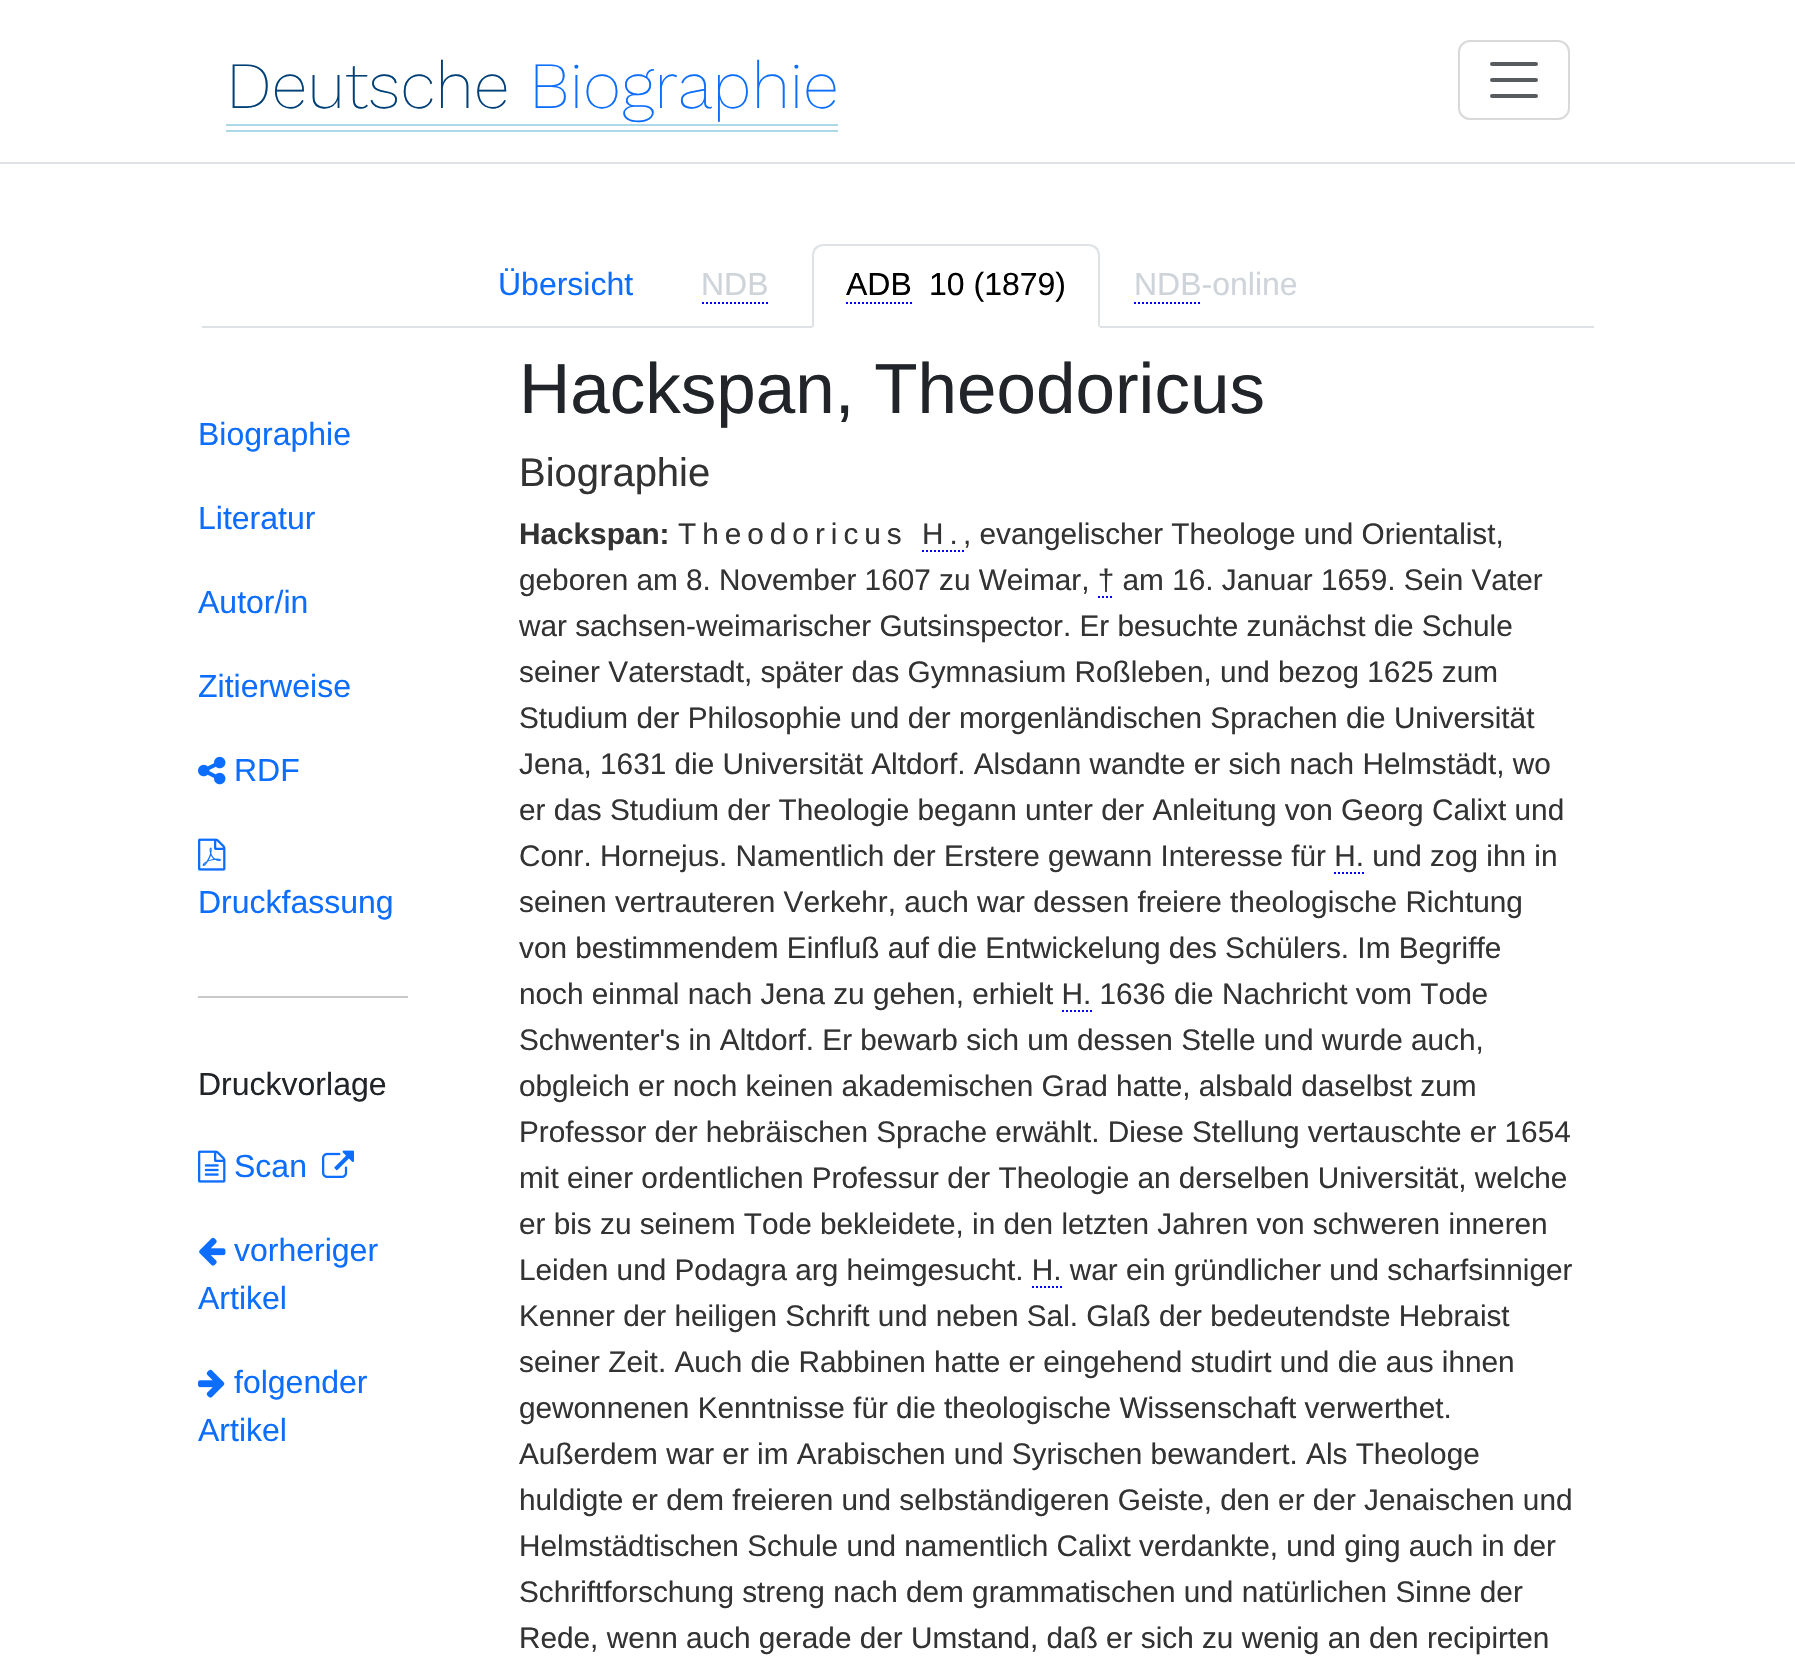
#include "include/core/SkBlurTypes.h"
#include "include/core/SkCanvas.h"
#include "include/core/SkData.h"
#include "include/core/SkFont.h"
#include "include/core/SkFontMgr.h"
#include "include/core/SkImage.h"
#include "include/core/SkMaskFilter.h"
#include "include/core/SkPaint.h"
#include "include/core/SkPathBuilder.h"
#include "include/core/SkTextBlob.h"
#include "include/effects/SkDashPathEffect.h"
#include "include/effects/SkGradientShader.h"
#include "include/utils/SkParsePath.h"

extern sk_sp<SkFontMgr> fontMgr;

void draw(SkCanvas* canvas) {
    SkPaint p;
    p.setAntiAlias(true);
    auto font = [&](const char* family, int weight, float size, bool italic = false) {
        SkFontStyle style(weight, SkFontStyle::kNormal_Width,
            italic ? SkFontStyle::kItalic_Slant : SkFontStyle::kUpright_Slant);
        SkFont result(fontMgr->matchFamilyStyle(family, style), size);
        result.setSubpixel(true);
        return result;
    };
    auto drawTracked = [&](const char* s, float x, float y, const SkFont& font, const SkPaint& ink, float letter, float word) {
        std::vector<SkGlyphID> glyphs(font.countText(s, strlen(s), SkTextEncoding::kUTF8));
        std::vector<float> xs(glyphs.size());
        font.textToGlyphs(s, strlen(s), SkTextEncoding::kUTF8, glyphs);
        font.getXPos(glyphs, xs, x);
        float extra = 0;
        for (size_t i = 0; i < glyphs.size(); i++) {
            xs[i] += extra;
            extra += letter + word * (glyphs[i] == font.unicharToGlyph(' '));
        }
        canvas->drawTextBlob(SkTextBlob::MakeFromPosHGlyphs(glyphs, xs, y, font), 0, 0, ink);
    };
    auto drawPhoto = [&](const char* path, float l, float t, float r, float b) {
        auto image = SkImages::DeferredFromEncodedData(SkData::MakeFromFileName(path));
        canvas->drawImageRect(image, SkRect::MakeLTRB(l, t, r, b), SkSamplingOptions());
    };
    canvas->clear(0xFFFFFFFF);
    p.setColor(0xFFDEE2E6);
    canvas->drawRect(SkRect::MakeLTRB(0, 162, 1795, 164), p);
    auto font1 = font("Work Sans", 200, 66);
    p.setColor(0xFF004077);
    canvas->drawString("Deutsche", 226, 108, font1, p);
    p.setColor(0xFF0D6EFD);
    canvas->drawString("Biographie", 529, 108, font1, p);
    p.setColor(0xFFADD8E6);
    canvas->drawRect(SkRect::MakeLTRB(226, 124, 838, 126), p);
    canvas->drawRect(SkRect::MakeLTRB(226, 130, 838, 132), p);
    p.setStyle(SkPaint::kStroke_Style);
    p.setStrokeWidth(2);
    p.setColor(0xFFD9D9D9);
    canvas->drawRoundRect(SkRect::MakeLTRB(1459, 41, 1569, 119), 11, 11, p);
    p.setStrokeWidth(4);
    p.setStrokeCap(SkPaint::kRound_Cap);
    p.setColor(0xFF595C5F);
    canvas->drawPath(SkPathBuilder().moveTo(1492, 64).lineTo(1536, 64).moveTo(1492, 80).lineTo(1536, 80).moveTo(1492, 96).lineTo(1536, 96).detach(), p);
    p.setStyle(SkPaint::kFill_Style);
    p.setColor(0xFFDEE2E6);
    canvas->drawRect(SkRect::MakeLTRB(202, 326, 1594, 328), p);
    auto font2 = font("Liberation Sans", 400, 32);
    p.setColor(0xFF0D6EFD);
    canvas->drawString("Übersicht", 498, 295, font2, p);
    p.setColor(0xFFCED4DA);
    canvas->drawString("NDB", 701, 295, font2, p);
    p.setStyle(SkPaint::kStroke_Style);
    p.setStrokeWidth(2);
    p.setStrokeCap(SkPaint::kButt_Cap);
    p.setColor(0xFF0000FF);
    p.setPathEffect(SkDashPathEffect::Make({{2, 2}}, 0));
    canvas->drawPath(SkPathBuilder().moveTo(702, 303).lineTo(768, 303).detach(), p);
    p.setPathEffect(nullptr);
    p.setStyle(SkPaint::kFill_Style);
    p.setColor(0xFFFFFFFF);
    canvas->drawPath(SkPathBuilder().moveTo(824, 244).lineTo(1088, 244).cubicTo(1094.5f, 244, 1100, 249.5f, 1100, 256).lineTo(1100, 328).lineTo(812, 328).lineTo(812, 256).cubicTo(812, 249.5f, 817.5f, 244, 824, 244).close().detach(), p);
    p.setColor(0xFFDEE2E6);
    canvas->drawPath(SkPathBuilder().moveTo(824, 244).cubicTo(820, 244, 818, 245, 815, 247).lineTo(817, 249).cubicTo(818, 247, 821, 246, 824, 246).lineTo(1088, 246).cubicTo(1091, 246, 1094, 247, 1095, 249).lineTo(1097, 247).cubicTo(1094, 245, 1092, 244, 1088, 244).close().detach(), p);
    canvas->drawPath(SkPathBuilder().moveTo(1100, 328).lineTo(1100, 256).cubicTo(1100, 252, 1099, 250, 1097, 247).lineTo(1095, 249).cubicTo(1097, 250, 1098, 253, 1098, 256).lineTo(1098, 326).close().detach(), p);
    p.setColor(0xFFFFFFFF);
    canvas->drawPath(SkPathBuilder().moveTo(1100, 328).lineTo(1098, 326).lineTo(814, 326).lineTo(812, 328).close().detach(), p);
    p.setColor(0xFFDEE2E6);
    canvas->drawPath(SkPathBuilder().moveTo(812, 328).lineTo(814, 326).lineTo(814, 256).cubicTo(814, 253, 815, 250, 817, 249).lineTo(815, 247).cubicTo(813, 250, 812, 252, 812, 256).close().detach(), p);
    p.setColor(0xFF000000);
    canvas->drawString("ADB", 846, 295, font2, p);
    p.setStyle(SkPaint::kStroke_Style);
    p.setColor(0xFF0000FF);
    p.setPathEffect(SkDashPathEffect::Make({{2, 2}}, 0));
    canvas->drawPath(SkPathBuilder().moveTo(846, 303).lineTo(912, 303).detach(), p);
    p.setPathEffect(nullptr);
    p.setStyle(SkPaint::kFill_Style);
    p.setColor(0xFF000000);
    canvas->drawString("10 (1879)", 929, 295, font2, p);
    p.setColor(0xFFCED4DA);
    canvas->drawString("NDB-online", 1134, 295, font2, p);
    p.setStyle(SkPaint::kStroke_Style);
    p.setColor(0xFF0000FF);
    p.setPathEffect(SkDashPathEffect::Make({{2, 2}}, 0));
    canvas->drawPath(SkPathBuilder().moveTo(1134, 303).lineTo(1202, 303).detach(), p);
    p.setPathEffect(nullptr);
    p.setStyle(SkPaint::kFill_Style);
    p.setColor(0xFF0D6EFD);
    {
        const struct { const char* s; float x, y; } items[] = {
            {"Biographie", 198, 445},
            {"Literatur", 198, 529},
            {"Autor/in", 198, 613},
            {"Zitierweise", 198, 697},
        };
        for (auto [s, x, y] : items) {
            canvas->drawString(s, x, y, font2, p);
        }
    }
    drawPhoto("media/1.png", 198, 756, 226, 785);
    canvas->drawString("RDF", 234, 781, font2, p);
    drawPhoto("media/2.png", 198, 838, 226, 871);
    canvas->drawString("Druckfassung", 198, 913, font2, p);
    p.setColor(0xFFC8C9CA);
    canvas->drawRect(SkRect::MakeLTRB(198, 996, 408, 998), p);
    p.setColor(0xFF212529);
    canvas->drawString("Druckvorlage", 198, 1095, font2, p);
    drawPhoto("media/3.png", 198, 1150, 226, 1183);
    p.setColor(0xFF0D6EFD);
    canvas->drawString("Scan", 234, 1177, font2, p);
    drawPhoto("media/4.png", 322, 1150, 354, 1178);
    drawPhoto("media/5.png", 199, 1237, 226, 1266);
    canvas->drawString("vorheriger", 234, 1261, font2, p);
    canvas->drawString("Artikel", 198, 1309, font2, p);
    drawPhoto("media/6.png", 198, 1369, 225, 1398);
    canvas->drawString("folgender", 234, 1393, font2, p);
    canvas->drawString("Artikel", 198, 1441, font2, p);
    auto font3 = font("Liberation Sans", 400, 71);
    p.setColor(0xFF212529);
    canvas->drawString("Hackspan, Theodoricus", 519, 413, font3, p);
    auto font4 = font("Liberation Sans", 400, 40);
    p.setColor(0xFF333333);
    canvas->drawString("Biographie", 519, 486, font4, p);
    auto font5 = font("Liberation Sans", 700, 29.75f);
    canvas->drawString("Hackspan:", 519, 544, font5, p);
    auto font6 = font("Liberation Sans", 400, 29.75f);
    drawTracked("Theodoricus H.", 678, 544, font6, p, 6, 0);
    p.setStyle(SkPaint::kStroke_Style);
    p.setColor(0xFF0000FF);
    p.setPathEffect(SkDashPathEffect::Make({{2, 2}}, 0));
    canvas->drawPath(SkPathBuilder().moveTo(922, 551).lineTo(964, 551).detach(), p);
    p.setPathEffect(nullptr);
    p.setStyle(SkPaint::kFill_Style);
    p.setColor(0xFF333333);
    canvas->drawString(", evangelischer Theologe und Orientalist,", 963, 544, font6, p);
    canvas->drawString("geboren am 8. November 1607 zu Weimar, † am 16. Januar 1659. Sein Vater", 519, 590, font6, p);
    p.setStyle(SkPaint::kStroke_Style);
    p.setColor(0xFF0000FF);
    p.setPathEffect(SkDashPathEffect::Make({{2, 2}}, 0));
    canvas->drawPath(SkPathBuilder().moveTo(1098, 597).lineTo(1114, 597).detach(), p);
    p.setPathEffect(nullptr);
    p.setStyle(SkPaint::kFill_Style);
    p.setColor(0xFF333333);
    {
        const struct { const char* s; float x, y; } items[] = {
            {"war sachsen-weimarischer Gutsinspector. Er besuchte zunächst die Schule", 519, 636},
            {"seiner Vaterstadt, später das Gymnasium Roßleben, und bezog 1625 zum", 519, 682},
            {"Studium der Philosophie und der morgenländischen Sprachen die Universität", 519, 728},
            {"Jena, 1631 die Universität Altdorf. Alsdann wandte er sich nach Helmstädt, wo", 519, 774},
            {"er das Studium der Theologie begann unter der Anleitung von Georg Calixt und", 519, 820},
            {"Conr. Hornejus. Namentlich der Erstere gewann Interesse für H. und zog ihn in", 519, 866},
        };
        for (auto [s, x, y] : items) {
            canvas->drawString(s, x, y, font6, p);
        }
    }
    p.setStyle(SkPaint::kStroke_Style);
    p.setColor(0xFF0000FF);
    p.setPathEffect(SkDashPathEffect::Make({{2, 2}}, 0));
    canvas->drawPath(SkPathBuilder().moveTo(1334, 873).lineTo(1364, 873).detach(), p);
    p.setPathEffect(nullptr);
    p.setStyle(SkPaint::kFill_Style);
    p.setColor(0xFF333333);
    {
        const struct { const char* s; float x, y; } items[] = {
            {"seinen vertrauteren Verkehr, auch war dessen freiere theologische Richtung", 519, 912},
            {"von bestimmendem Einfluß auf die Entwickelung des Schülers. Im Begriffe", 519, 958},
            {"noch einmal nach Jena zu gehen, erhielt H. 1636 die Nachricht vom Tode", 519, 1004},
        };
        for (auto [s, x, y] : items) {
            canvas->drawString(s, x, y, font6, p);
        }
    }
    p.setStyle(SkPaint::kStroke_Style);
    p.setColor(0xFF0000FF);
    p.setPathEffect(SkDashPathEffect::Make({{2, 2}}, 0));
    canvas->drawPath(SkPathBuilder().moveTo(1062, 1011).lineTo(1092, 1011).detach(), p);
    p.setPathEffect(nullptr);
    p.setStyle(SkPaint::kFill_Style);
    p.setColor(0xFF333333);
    {
        const struct { const char* s; float x, y; } items[] = {
            {"Schwenter's in Altdorf. Er bewarb sich um dessen Stelle und wurde auch,", 519, 1050},
            {"obgleich er noch keinen akademischen Grad hatte, alsbald daselbst zum", 519, 1096},
            {"Professor der hebräischen Sprache erwählt. Diese Stellung vertauschte er 1654", 519, 1142},
            {"mit einer ordentlichen Professur der Theologie an derselben Universität, welche", 519, 1188},
            {"er bis zu seinem Tode bekleidete, in den letzten Jahren von schweren inneren", 519, 1234},
            {"Leiden und Podagra arg heimgesucht. H. war ein gründlicher und scharfsinniger", 519, 1280},
        };
        for (auto [s, x, y] : items) {
            canvas->drawString(s, x, y, font6, p);
        }
    }
    p.setStyle(SkPaint::kStroke_Style);
    p.setColor(0xFF0000FF);
    p.setPathEffect(SkDashPathEffect::Make({{2, 2}}, 0));
    canvas->drawPath(SkPathBuilder().moveTo(1032, 1287).lineTo(1062, 1287).detach(), p);
    p.setPathEffect(nullptr);
    p.setStyle(SkPaint::kFill_Style);
    p.setColor(0xFF333333);
    {
        const struct { const char* s; float x, y; } items[] = {
            {"Kenner der heiligen Schrift und neben Sal. Glaß der bedeutendste Hebraist", 519, 1326},
            {"seiner Zeit. Auch die Rabbinen hatte er eingehend studirt und die aus ihnen", 519, 1372},
            {"gewonnenen Kenntnisse für die theologische Wissenschaft verwerthet.", 519, 1418},
            {"Außerdem war er im Arabischen und Syrischen bewandert. Als Theologe", 519, 1464},
            {"huldigte er dem freieren und selbständigeren Geiste, den er der Jenaischen und", 519, 1510},
            {"Helmstädtischen Schule und namentlich Calixt verdankte, und ging auch in der", 519, 1556},
            {"Schriftforschung streng nach dem grammatischen und natürlichen Sinne der", 519, 1602},
            {"Rede, wenn auch gerade der Umstand, daß er sich zu wenig an den recipirten", 519, 1648},
        };
        for (auto [s, x, y] : items) {
            canvas->drawString(s, x, y, font6, p);
        }
    }
}
